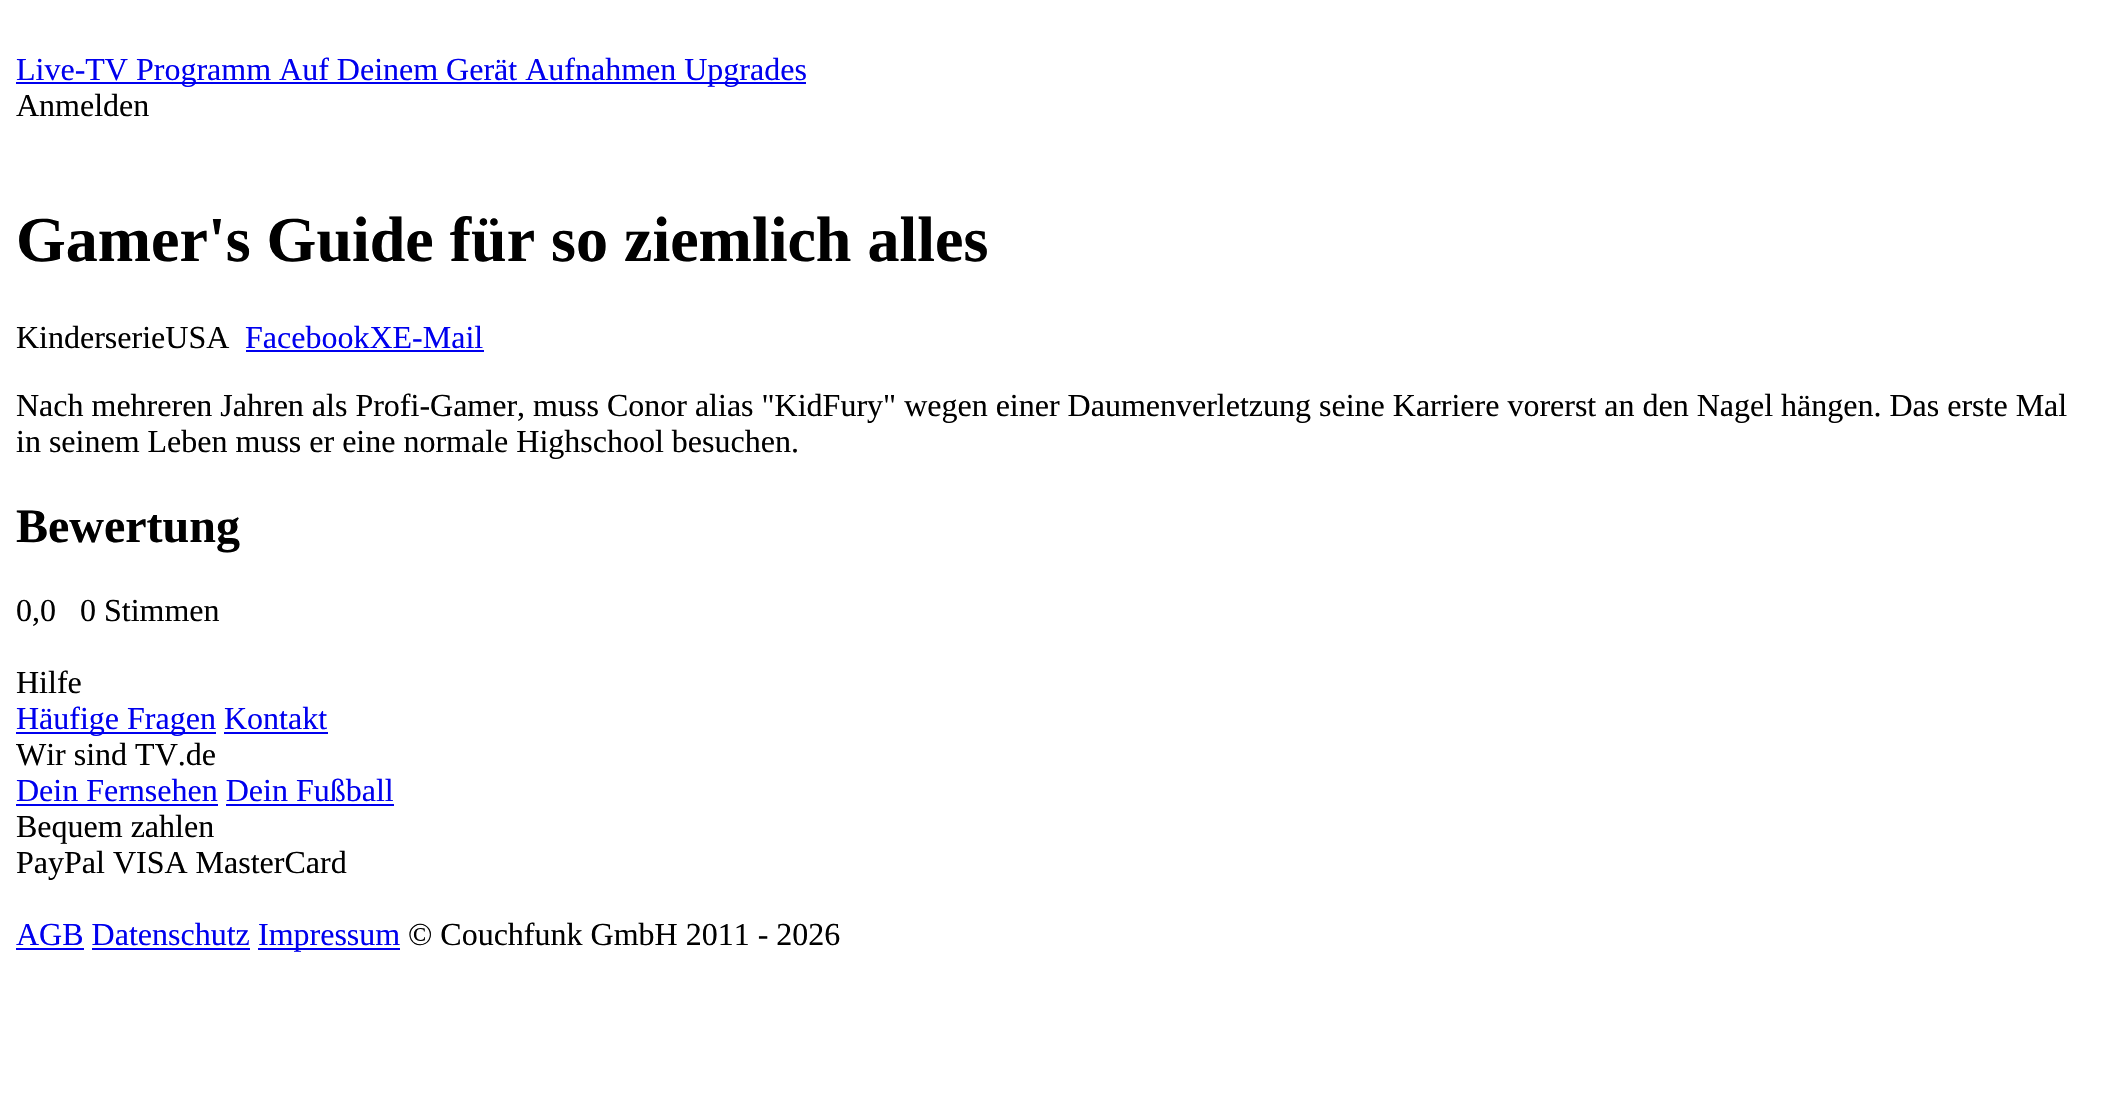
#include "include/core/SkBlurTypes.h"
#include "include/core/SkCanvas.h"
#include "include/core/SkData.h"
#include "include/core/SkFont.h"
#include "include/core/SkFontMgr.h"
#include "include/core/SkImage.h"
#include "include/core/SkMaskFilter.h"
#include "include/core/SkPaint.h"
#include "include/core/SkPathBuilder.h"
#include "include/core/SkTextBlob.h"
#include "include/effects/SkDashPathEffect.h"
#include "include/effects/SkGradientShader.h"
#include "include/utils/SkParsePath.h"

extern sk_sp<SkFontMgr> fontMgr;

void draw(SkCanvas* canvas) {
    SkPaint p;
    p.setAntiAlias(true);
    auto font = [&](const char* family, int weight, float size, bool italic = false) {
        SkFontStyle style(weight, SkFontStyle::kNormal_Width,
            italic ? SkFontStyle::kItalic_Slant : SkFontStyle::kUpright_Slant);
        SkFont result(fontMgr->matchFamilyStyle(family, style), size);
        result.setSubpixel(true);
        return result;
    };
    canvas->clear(0xFFFFFFFF);
    p.setColor(0xFF0000EE);
    canvas->drawRect(SkRect::MakeLTRB(16, 82, 806, 84), p);
    auto font1 = font("Liberation Serif", 400, 32);
    canvas->drawString("Live-TV Programm Auf Deinem Gerät Aufnahmen Upgrades", 16, 80, font1, p);
    p.setColor(0xFF000000);
    canvas->drawString("Anmelden", 16, 116, font1, p);
    auto font2 = font("Liberation Serif", 700, 64);
    canvas->drawString("Gamer's Guide für so ziemlich alles", 16, 261, font2, p);
    canvas->drawString("KinderserieUSA", 16, 348, font1, p);
    p.setColor(0xFF0000EE);
    canvas->drawString("FacebookXE-Mail", 245, 348, font1, p);
    canvas->drawRect(SkRect::MakeLTRB(246, 350, 484, 352), p);
    p.setColor(0xFF000000);
    canvas->drawString("Nach mehreren Jahren als Profi-Gamer, muss Conor alias \"KidFury\" wegen einer Daumenverletzung seine Karriere vorerst an den Nagel hängen. Das erste Mal", 16, 416, font1, p);
    canvas->drawString("in seinem Leben muss er eine normale Highschool besuchen.", 16, 452, font1, p);
    auto font3 = font("Liberation Serif", 700, 48);
    canvas->drawString("Bewertung", 16, 542, font3, p);
    {
        const struct { const char* s; float x, y; } items[] = {
            {"0,0", 16, 621},
            {"0 Stimmen", 80, 621},
            {"Hilfe", 16, 693},
        };
        for (auto [s, x, y] : items) {
            canvas->drawString(s, x, y, font1, p);
        }
    }
    p.setColor(0xFF0000EE);
    canvas->drawRect(SkRect::MakeLTRB(16, 732, 216, 734), p);
    canvas->drawString("Häufige Fragen Kontakt", 16, 729, font1, p);
    canvas->drawRect(SkRect::MakeLTRB(224, 732, 328, 734), p);
    p.setColor(0xFF000000);
    canvas->drawString("Wir sind TV.de", 16, 765, font1, p);
    p.setColor(0xFF0000EE);
    canvas->drawString("Dein Fernsehen Dein Fußball", 16, 801, font1, p);
    canvas->drawRect(SkRect::MakeLTRB(16, 804, 218, 806), p);
    canvas->drawRect(SkRect::MakeLTRB(226, 804, 394, 806), p);
    p.setColor(0xFF000000);
    canvas->drawString("Bequem zahlen", 16, 837, font1, p);
    canvas->drawString("PayPal VISA MasterCard", 16, 873, font1, p);
    p.setColor(0xFF0000EE);
    canvas->drawString("AGB Datenschutz", 16, 945, font1, p);
    canvas->drawRect(SkRect::MakeLTRB(16, 948, 84, 950), p);
    canvas->drawRect(SkRect::MakeLTRB(258, 948, 400, 950), p);
    canvas->drawString("Impressum", 258, 945, font1, p);
    p.setColor(0xFF000000);
    canvas->drawString("© Couchfunk GmbH 2011 - 2026", 408, 945, font1, p);
    p.setColor(0xFF0000EE);
    canvas->drawRect(SkRect::MakeLTRB(92, 948, 250, 950), p);
}
